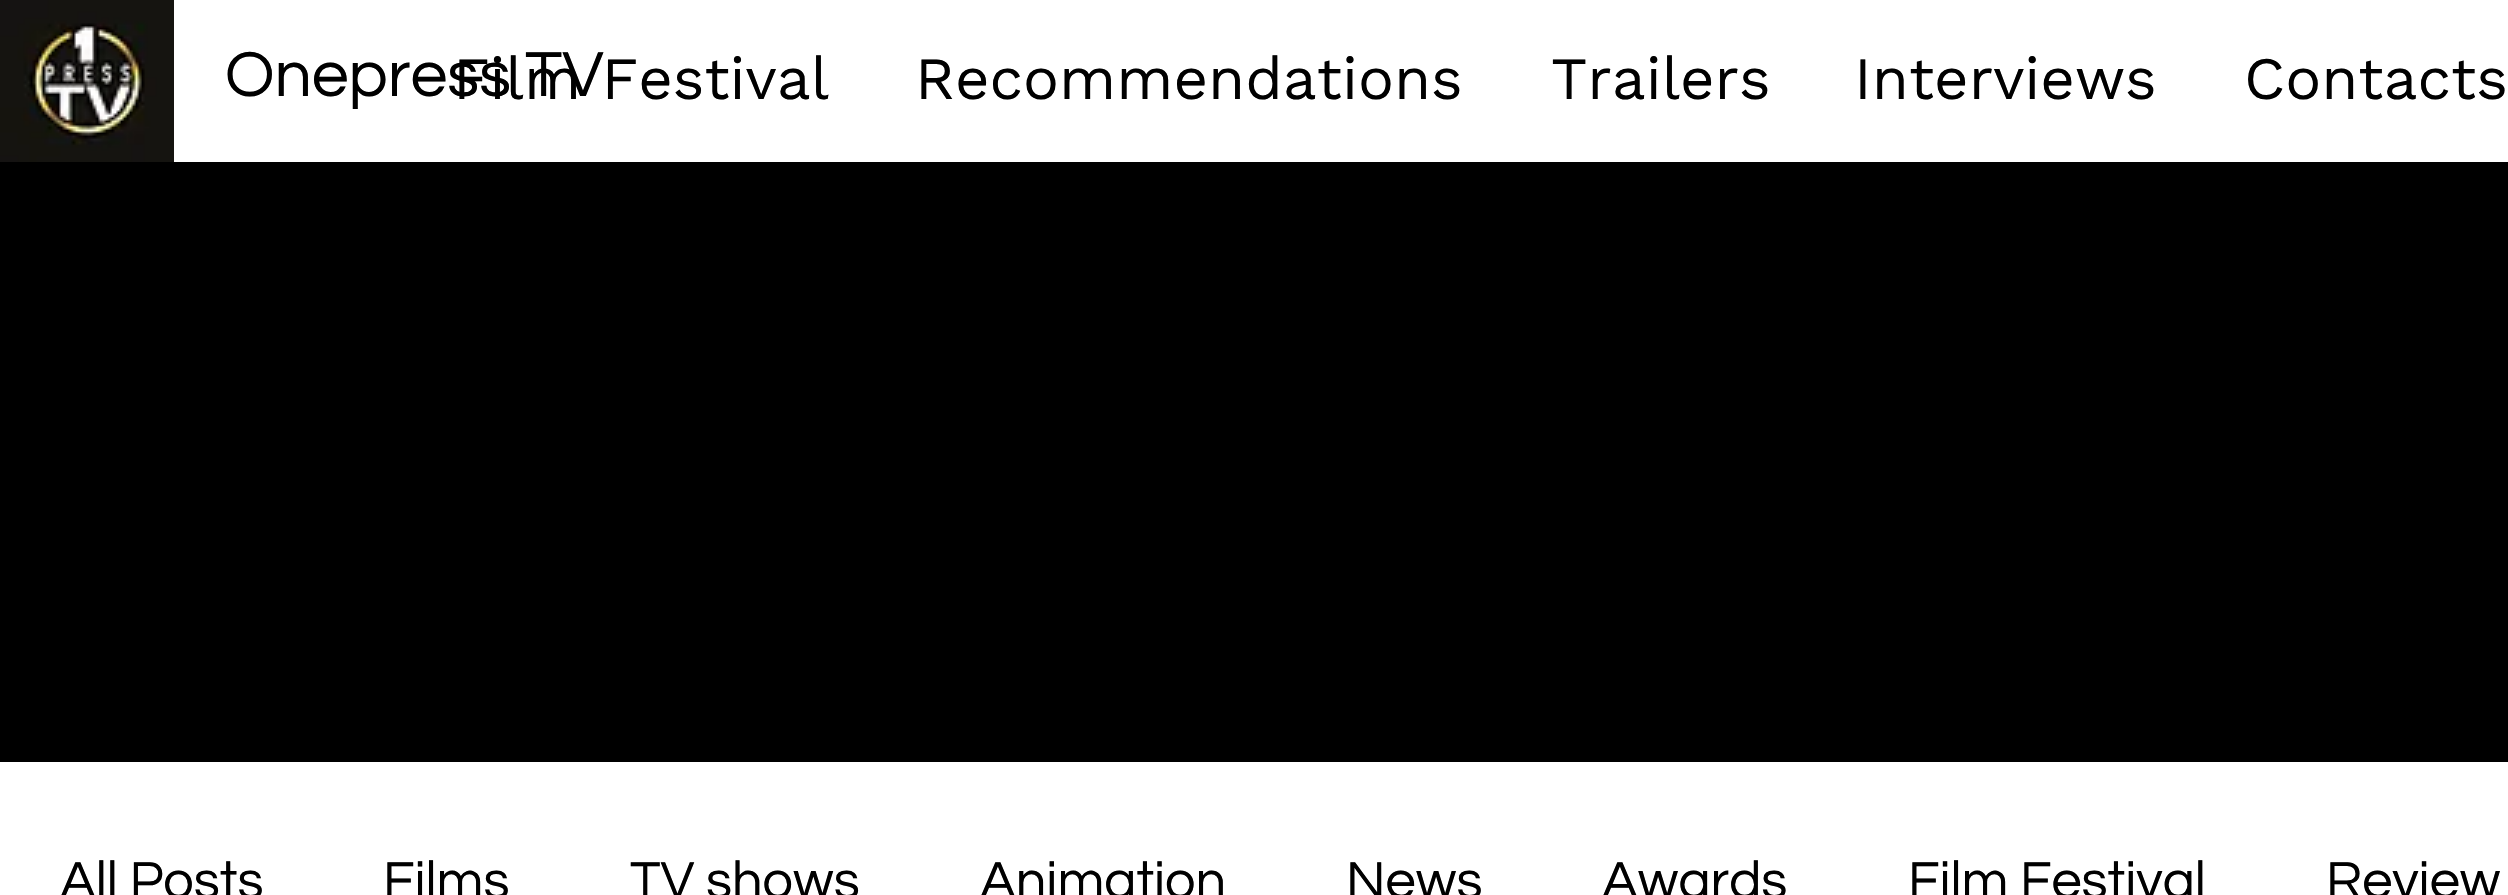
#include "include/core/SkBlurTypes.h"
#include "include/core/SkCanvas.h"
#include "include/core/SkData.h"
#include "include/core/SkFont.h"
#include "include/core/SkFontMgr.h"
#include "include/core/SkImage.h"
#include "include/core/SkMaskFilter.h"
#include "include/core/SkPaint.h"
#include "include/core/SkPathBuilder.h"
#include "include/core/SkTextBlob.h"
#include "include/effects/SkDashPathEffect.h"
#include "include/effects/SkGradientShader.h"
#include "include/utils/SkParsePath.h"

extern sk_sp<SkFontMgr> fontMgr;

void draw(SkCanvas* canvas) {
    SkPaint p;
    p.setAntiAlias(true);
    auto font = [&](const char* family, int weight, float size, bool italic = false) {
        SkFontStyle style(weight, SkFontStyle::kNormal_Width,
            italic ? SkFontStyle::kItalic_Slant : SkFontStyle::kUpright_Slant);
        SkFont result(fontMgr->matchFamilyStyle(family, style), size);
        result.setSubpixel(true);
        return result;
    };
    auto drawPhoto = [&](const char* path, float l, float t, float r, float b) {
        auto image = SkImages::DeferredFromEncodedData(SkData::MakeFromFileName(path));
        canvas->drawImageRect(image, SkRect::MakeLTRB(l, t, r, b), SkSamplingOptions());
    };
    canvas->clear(0xFFFFFFFF);
    drawPhoto("media/1.png", 0, 0, 174, 162);
    auto font1 = font("Questrial", 400, 66);
    p.setColor(0xFF000000);
    canvas->drawString("Onepress TV", 225, 96, font1, p);
    auto font2 = font("Work Sans", 400, 60);
    {
        const struct { const char* s; float x, y; } items[] = {
            {"Film Festival", 453, 99},
            {"Recommendations", 915, 99},
            {"Trailers", 1551, 99},
            {"Interviews", 1854, 99},
            {"Contacts", 2244, 99},
        };
        for (auto [s, x, y] : items) {
            canvas->drawString(s, x, y, font2, p);
        }
    }
    canvas->drawRect(SkRect::MakeLTRB(0, 162, 2508, 762), p);
    auto font3 = font("Questrial", 400, 54);
    {
        const struct { const char* s; float x, y; } items[] = {
            {"All Posts", 60, 898},
            {"Films", 383, 898},
            {"TV shows", 630, 898},
            {"Animation", 980, 898},
            {"News", 1346, 898},
            {"Awards", 1602, 898},
            {"Film Festival", 1908, 898},
            {"Review", 2326, 898},
        };
        for (auto [s, x, y] : items) {
            canvas->drawString(s, x, y, font3, p);
        }
    }
}
